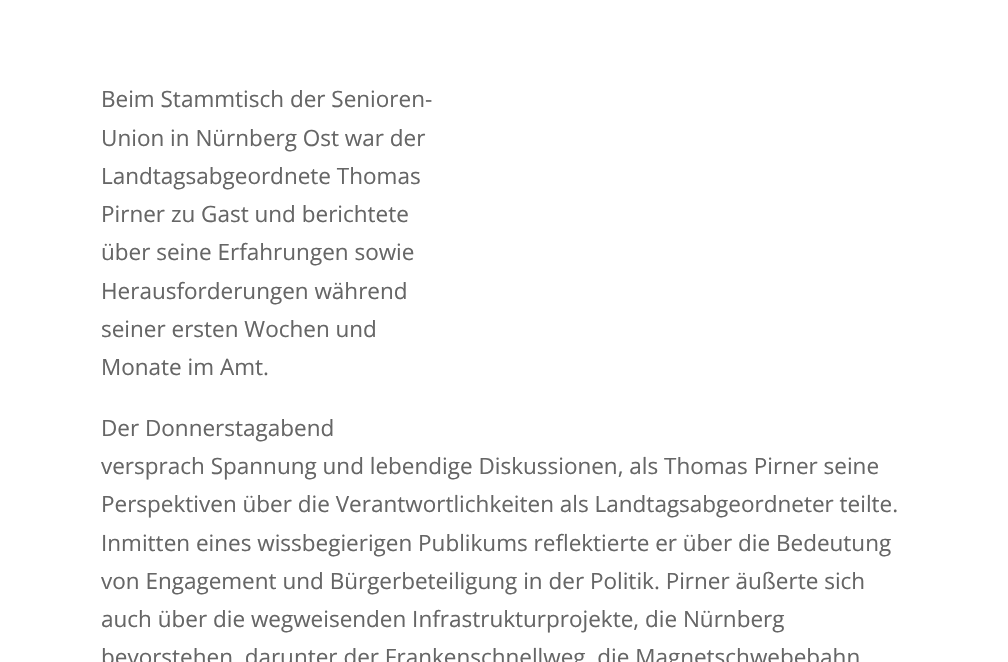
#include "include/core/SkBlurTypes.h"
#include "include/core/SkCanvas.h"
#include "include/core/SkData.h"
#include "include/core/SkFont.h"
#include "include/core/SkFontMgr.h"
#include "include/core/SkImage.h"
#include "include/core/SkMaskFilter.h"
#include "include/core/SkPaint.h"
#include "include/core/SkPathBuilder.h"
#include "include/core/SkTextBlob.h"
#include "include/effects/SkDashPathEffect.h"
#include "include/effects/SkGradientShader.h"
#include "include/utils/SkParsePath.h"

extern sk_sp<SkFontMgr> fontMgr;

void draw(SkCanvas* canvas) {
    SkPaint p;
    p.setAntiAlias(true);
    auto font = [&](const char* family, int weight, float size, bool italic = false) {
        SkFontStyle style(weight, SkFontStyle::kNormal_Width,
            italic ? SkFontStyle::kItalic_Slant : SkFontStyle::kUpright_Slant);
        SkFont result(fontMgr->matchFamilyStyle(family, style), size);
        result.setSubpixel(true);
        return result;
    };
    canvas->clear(0xFFFFFFFF);
    auto font1 = font("Open Sans", 400, 22.5f);
    p.setColor(0xFF666666);
    {
        const struct { const char* s; float x, y; } items[] = {
            {"Beim Stammtisch der Senioren-", 101, 107},
            {"Union in Nürnberg Ost war der", 101, 146},
            {"Landtagsabgeordnete Thomas", 101, 184},
            {"Pirner zu Gast und berichtete", 101, 222},
            {"über seine Erfahrungen sowie", 101, 260},
            {"Herausforderungen während", 101, 299},
            {"seiner ersten Wochen und", 101, 337},
            {"Monate im Amt.", 101, 375},
            {"Der Donnerstagabend", 101, 436},
            {"versprach Spannung und lebendige Diskussionen, als Thomas Pirner seine", 101, 474},
            {"Perspektiven über die Verantwortlichkeiten als Landtagsabgeordneter teilte.", 101, 512},
            {"Inmitten eines wissbegierigen Publikums reflektierte er über die Bedeutung", 101, 551},
            {"von Engagement und Bürgerbeteiligung in der Politik. Pirner äußerte sich", 101, 589},
            {"auch über die wegweisenden Infrastrukturprojekte, die Nürnberg", 101, 627},
            {"bevorstehen, darunter der Frankenschnellweg, die Magnetschwebebahn", 101, 665},
        };
        for (auto [s, x, y] : items) {
            canvas->drawString(s, x, y, font1, p);
        }
    }
}
